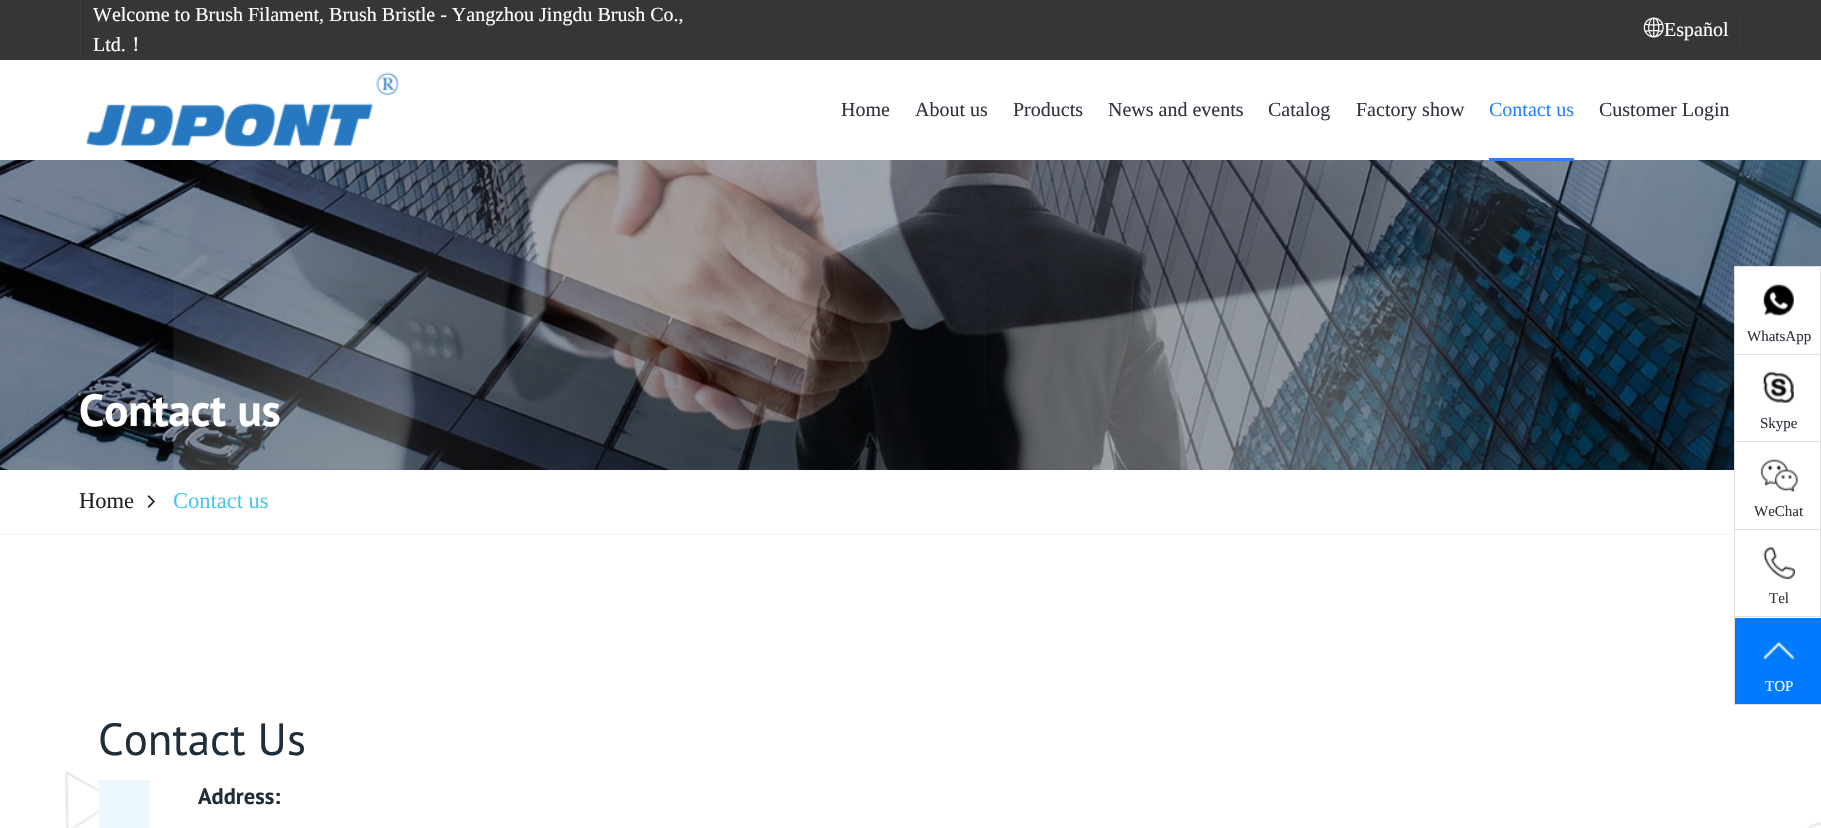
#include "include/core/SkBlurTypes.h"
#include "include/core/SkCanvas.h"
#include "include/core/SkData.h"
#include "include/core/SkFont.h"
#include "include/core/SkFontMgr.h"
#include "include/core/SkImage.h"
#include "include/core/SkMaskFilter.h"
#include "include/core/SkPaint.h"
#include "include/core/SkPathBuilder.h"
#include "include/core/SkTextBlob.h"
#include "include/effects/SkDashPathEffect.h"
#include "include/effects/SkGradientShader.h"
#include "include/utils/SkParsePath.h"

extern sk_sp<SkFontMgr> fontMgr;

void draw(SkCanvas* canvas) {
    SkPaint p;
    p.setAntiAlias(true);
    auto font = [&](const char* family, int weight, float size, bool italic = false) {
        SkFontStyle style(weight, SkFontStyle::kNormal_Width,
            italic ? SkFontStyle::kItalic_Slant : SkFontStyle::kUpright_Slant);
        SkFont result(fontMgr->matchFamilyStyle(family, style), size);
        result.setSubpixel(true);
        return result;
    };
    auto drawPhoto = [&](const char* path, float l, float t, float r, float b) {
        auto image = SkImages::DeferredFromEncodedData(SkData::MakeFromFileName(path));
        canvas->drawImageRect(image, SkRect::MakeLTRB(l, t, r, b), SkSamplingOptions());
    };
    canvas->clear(0xFFFFFFFF);
    p.setColor(0xFF363636);
    canvas->drawRect(SkRect::MakeLTRB(0, 0, 1821, 60), p);
    p.setColor(0xFF3C3D48);
    canvas->drawRect(SkRect::MakeLTRB(80, 0, 81, 60), p);
    auto font1 = font("Liberation Serif", 400, 20);
    p.setColor(0xFFFFFFFF);
    canvas->drawString("Welcome to Brush Filament, Brush Bristle - Yangzhou Jingdu Brush Co.,", 93, 21, font1, p);
    canvas->drawString("Ltd.", 93, 51, font1, p);
    auto font2 = font("WenQuanYi Zen Hei", 500, 20);
    canvas->drawString("！", 126, 51, font2, p);
    p.setColor(0xFF3C3D48);
    canvas->drawRect(SkRect::MakeLTRB(1740, 15, 1741, 45), p);
    drawPhoto("media/1.png", 1643, 17, 1664, 38);
    p.setColor(0xFFFFFFFF);
    canvas->drawString("Español", 1664, 36, font1, p);
    drawPhoto("media/2.png", 86, 72, 399, 148);
    p.setColor(0xFF31333E);
    {
        const struct { const char* s; float x, y; } items[] = {
            {"Home", 841, 116},
            {"About us", 915, 116},
            {"Products", 1013, 116},
            {"News and events", 1108, 116},
            {"Catalog", 1268, 116},
            {"Factory show", 1356, 116},
        };
        for (auto [s, x, y] : items) {
            canvas->drawString(s, x, y, font1, p);
        }
    }
    p.setColor(0xFF2981FF);
    canvas->drawString("Contact us", 1489, 116, font1, p);
    drawPhoto("media/3.png", 0, 160, 1821, 470);
    canvas->drawRect(SkRect::MakeLTRB(1489, 158, 1574, 161), p);
    p.setColor(0xFF31333E);
    canvas->drawString("Customer Login", 1599, 116, font1, p);
    auto font3 = font("PT Sans", 700, 45);
    p.setColor(0xFFFFFFFF);
    canvas->drawString("Contact us", 79, 426, font3, p);
    {
        const struct { float l, t, r, b; SkColor color; } items[] = {
            {1735, 267, 1820, 470, 0xFFFFFFFF},
            {1734, 266, 1821, 267, 0xFFE0E0E0},
            {1820, 266, 1821, 618, 0xFFE0E0E0},
            {1734, 266, 1735, 705, 0xFFE0E0E0},
            {1735, 354, 1821, 355, 0xFFE0E0E0},
        };
        for (auto [l, t, r, b, color] : items) {
            p.setColor(color);
            canvas->drawRect(SkRect::MakeLTRB(l, t, r, b), p);
        }
    }
    drawPhoto("media/4.png", 1763, 284, 1794, 316);
    auto font4 = font("Liberation Serif", 400, 15);
    p.setColor(0xFF31333E);
    canvas->drawString("WhatsApp", 1747, 341, font4, p);
    p.setColor(0xFFE0E0E0);
    canvas->drawRect(SkRect::MakeLTRB(1735, 441, 1821, 442), p);
    drawPhoto("media/5.png", 1763, 371, 1794, 403);
    p.setColor(0xFF31333E);
    canvas->drawString("Skype", 1760, 428, font4, p);
    p.setColor(0xFFE0E0E0);
    canvas->drawRect(SkRect::MakeLTRB(1735, 529, 1821, 530), p);
    drawPhoto("media/6.png", 1761, 459, 1798, 492);
    p.setColor(0xFF333333);
    canvas->drawString("WeChat", 1754, 516, font4, p);
    p.setColor(0xFFE0E0E0);
    canvas->drawRect(SkRect::MakeLTRB(1735, 616, 1821, 617), p);
    drawPhoto("media/7.png", 1763, 546, 1795, 579);
    p.setColor(0xFF333333);
    canvas->drawString("Tel", 1769, 603, font4, p);
    p.setColor(0xFF007BFF);
    canvas->drawRect(SkRect::MakeLTRB(1735, 618, 1821, 704), p);
    p.setColor(0xFFE0E0E0);
    canvas->drawRect(SkRect::MakeLTRB(1735, 704, 1821, 705), p);
    drawPhoto("media/8.png", 1763, 641, 1794, 660);
    p.setColor(0xFFFFFFFF);
    canvas->drawString("TOP", 1765, 691, font4, p);
    p.setColor(0xFFF4F4F4);
    canvas->drawRect(SkRect::MakeLTRB(0, 534, 1734, 535), p);
    auto font5 = font("Liberation Serif", 400, 22.5f);
    p.setColor(0xFF222222);
    canvas->drawString("Home", 79, 508, font5, p);
    drawPhoto("media/9.png", 147, 495, 155, 508);
    p.setColor(0xFF48C7EC);
    canvas->drawString("Contact us", 173, 508, font5, p);
    drawPhoto("media/10.png", 64, 771, 1821, 828);
    auto font6 = font("PT Sans", 400, 45);
    p.setColor(0xFF202E39);
    canvas->drawString("Contact Us", 98, 755, font6, p);
    p.setColor(0xFFECF7FE);
    canvas->drawRect(SkRect::MakeLTRB(99, 780, 149, 828), p);
    auto font7 = font("PT Sans", 700, 22.5f);
    p.setColor(0xFF202E39);
    canvas->drawString("Address:", 198, 804, font7, p);
}
